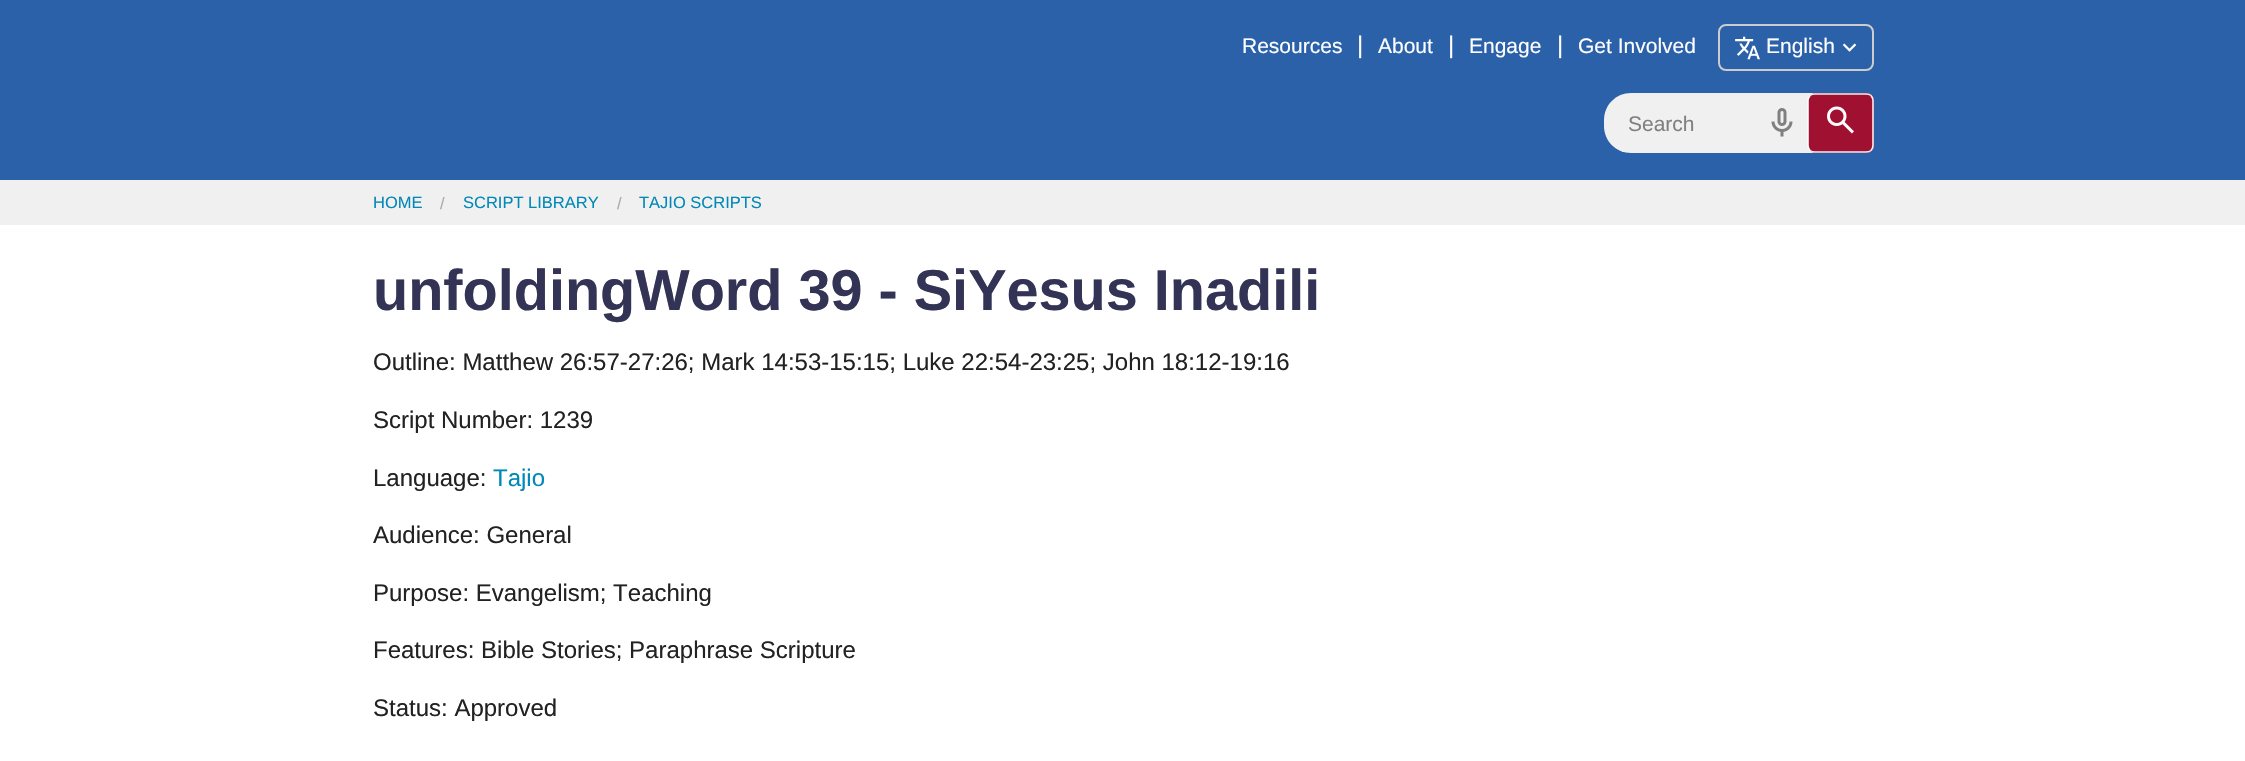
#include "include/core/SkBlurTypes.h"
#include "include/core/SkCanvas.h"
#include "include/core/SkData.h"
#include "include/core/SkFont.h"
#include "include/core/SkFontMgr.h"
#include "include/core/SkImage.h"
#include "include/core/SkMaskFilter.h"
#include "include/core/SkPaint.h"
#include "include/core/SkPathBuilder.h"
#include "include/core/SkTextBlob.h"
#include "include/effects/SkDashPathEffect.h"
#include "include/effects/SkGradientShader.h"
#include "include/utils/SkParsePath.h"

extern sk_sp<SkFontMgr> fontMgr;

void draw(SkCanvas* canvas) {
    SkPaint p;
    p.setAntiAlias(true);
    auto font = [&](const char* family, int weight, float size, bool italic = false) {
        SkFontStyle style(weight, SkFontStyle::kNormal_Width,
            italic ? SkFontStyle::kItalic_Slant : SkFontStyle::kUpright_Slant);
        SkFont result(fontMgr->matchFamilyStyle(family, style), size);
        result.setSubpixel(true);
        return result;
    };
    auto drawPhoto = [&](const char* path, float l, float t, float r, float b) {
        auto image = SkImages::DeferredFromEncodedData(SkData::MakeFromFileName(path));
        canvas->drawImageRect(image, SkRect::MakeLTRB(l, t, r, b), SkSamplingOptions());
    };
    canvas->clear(0xFFFFFFFF);
    p.setColor(0xFF2B61A9);
    canvas->drawRect(SkRect::MakeLTRB(0, 0, 2245, 180), p);
    auto font1 = font("Liberation Sans", 400, 21);
    p.setColor(0xFFFFFFFF);
    canvas->drawString("Resources", 1242, 53, font1, p);
    auto font2 = font("Liberation Sans", 400, 24);
    canvas->drawString("|", 1357, 53, font2, p);
    canvas->drawString("About", 1378, 53, font1, p);
    canvas->drawString("|", 1448, 53, font2, p);
    canvas->drawString("Engage", 1469, 53, font1, p);
    canvas->drawString("|", 1557, 53, font2, p);
    canvas->drawString("Get Involved", 1578, 53, font1, p);
    p.setStyle(SkPaint::kStroke_Style);
    p.setStrokeWidth(2);
    p.setColor(0xFFCCCCCC);
    canvas->drawRoundRect(SkRect::MakeLTRB(1719, 25, 1873, 70), 7, 7, p);
    drawPhoto("media/1.png", 1735, 36, 1760, 60);
    p.setStyle(SkPaint::kFill_Style);
    p.setColor(0xFFFFFFFF);
    canvas->drawString("English", 1766, 53, font1, p);
    drawPhoto("media/2.png", 1842, 43, 1857, 52);
    p.setColor(0xFFF0F0F0);
    canvas->drawPath(SkPathBuilder().moveTo(1631, 93).lineTo(1866, 93).cubicTo(1870.5f, 93, 1874, 96.5f, 1874, 101).lineTo(1874, 145).cubicTo(1874, 149.5f, 1870.5f, 153, 1866, 153).lineTo(1631, 153).cubicTo(1616, 153, 1604, 141, 1604, 126).lineTo(1604, 120).cubicTo(1604, 105, 1616, 93, 1631, 93).close().detach(), p);
    canvas->drawRect(SkRect::MakeLTRB(1622, 151, 1624, 152), p);
    p.setColor(0xFF808080);
    canvas->drawString("Search", 1628, 131, font1, p);
    drawPhoto("media/3.png", 1771, 108, 1793, 137);
    p.setColor(0xFFA01030);
    canvas->drawRoundRect(SkRect::MakeLTRB(1808, 93, 1874, 153), 8, 8, p);
    p.setStyle(SkPaint::kStroke_Style);
    p.setStrokeWidth(1.5f);
    p.setColor(0xFFF0F0F0);
    canvas->drawPath(SkPathBuilder().moveTo(1810, 95.5f).cubicTo(1811.5f, 94.5f, 1813, 94, 1815, 94).lineTo(1866, 94).cubicTo(1868, 94, 1869.5f, 94.5f, 1871, 95.5f).detach(), p);
    p.setColor(0xFFFFFFFF);
    canvas->drawPath(SkPathBuilder().moveTo(1871, 95.5f).cubicTo(1872, 97, 1873, 98.5f, 1873, 100.5f).lineTo(1873, 145.5f).cubicTo(1873, 147.5f, 1872, 149, 1871, 150.5f).detach(), p);
    p.setColor(0xFFF0F0F0);
    canvas->drawPath(SkPathBuilder().moveTo(1871, 150.5f).cubicTo(1869.5f, 151.5f, 1868, 152, 1866, 152).lineTo(1815, 152).cubicTo(1813, 152, 1811.5f, 151.5f, 1810, 150.5f).detach(), p);
    p.setColor(0xFFFFFFFF);
    canvas->drawPath(SkPathBuilder().moveTo(1810, 150.5f).cubicTo(1809, 149, 1808, 147.5f, 1808, 145.5f).lineTo(1808, 100.5f).cubicTo(1808, 98.5f, 1809, 97, 1810, 95.5f).detach(), p);
    drawPhoto("media/4.png", 1827, 106, 1854, 134);
    p.setStyle(SkPaint::kFill_Style);
    p.setColor(0xFFF0F0F0);
    canvas->drawRect(SkRect::MakeLTRB(0, 180, 2245, 225), p);
    auto font3 = font("Liberation Sans", 400, 16.5f);
    p.setColor(0xFF0088B8);
    canvas->drawString("HOME", 373, 208, font3, p);
    p.setColor(0xFFAAAAAA);
    canvas->drawString("/", 440, 209, font3, p);
    p.setColor(0xFF0088B8);
    canvas->drawString("SCRIPT LIBRARY", 463, 208, font3, p);
    p.setColor(0xFFAAAAAA);
    canvas->drawString("/", 617, 209, font3, p);
    p.setColor(0xFF0088B8);
    canvas->drawString("TAJIO SCRIPTS", 639, 208, font3, p);
    auto font4 = font("Liberation Sans", 700, 57.6f);
    p.setColor(0xFF333355);
    canvas->drawString("unfoldingWord 39 - SiYesus Inadili", 373, 310, font4, p);
    p.setColor(0xFF222222);
    {
        const struct { const char* s; float x, y; } items[] = {
            {"Outline: Matthew 26:57-27:26; Mark 14:53-15:15; Luke 22:54-23:25; John 18:12-19:16", 373, 370},
            {"Script Number: 1239", 373, 428},
            {"Language:", 373, 486},
        };
        for (auto [s, x, y] : items) {
            canvas->drawString(s, x, y, font2, p);
        }
    }
    p.setColor(0xFF0088B8);
    canvas->drawString("Tajio", 493, 486, font2, p);
    p.setColor(0xFF222222);
    {
        const struct { const char* s; float x, y; } items[] = {
            {"Audience: General", 373, 543},
            {"Purpose: Evangelism; Teaching", 373, 601},
            {"Features: Bible Stories; Paraphrase Scripture", 373, 658},
            {"Status: Approved", 373, 716},
        };
        for (auto [s, x, y] : items) {
            canvas->drawString(s, x, y, font2, p);
        }
    }
}
